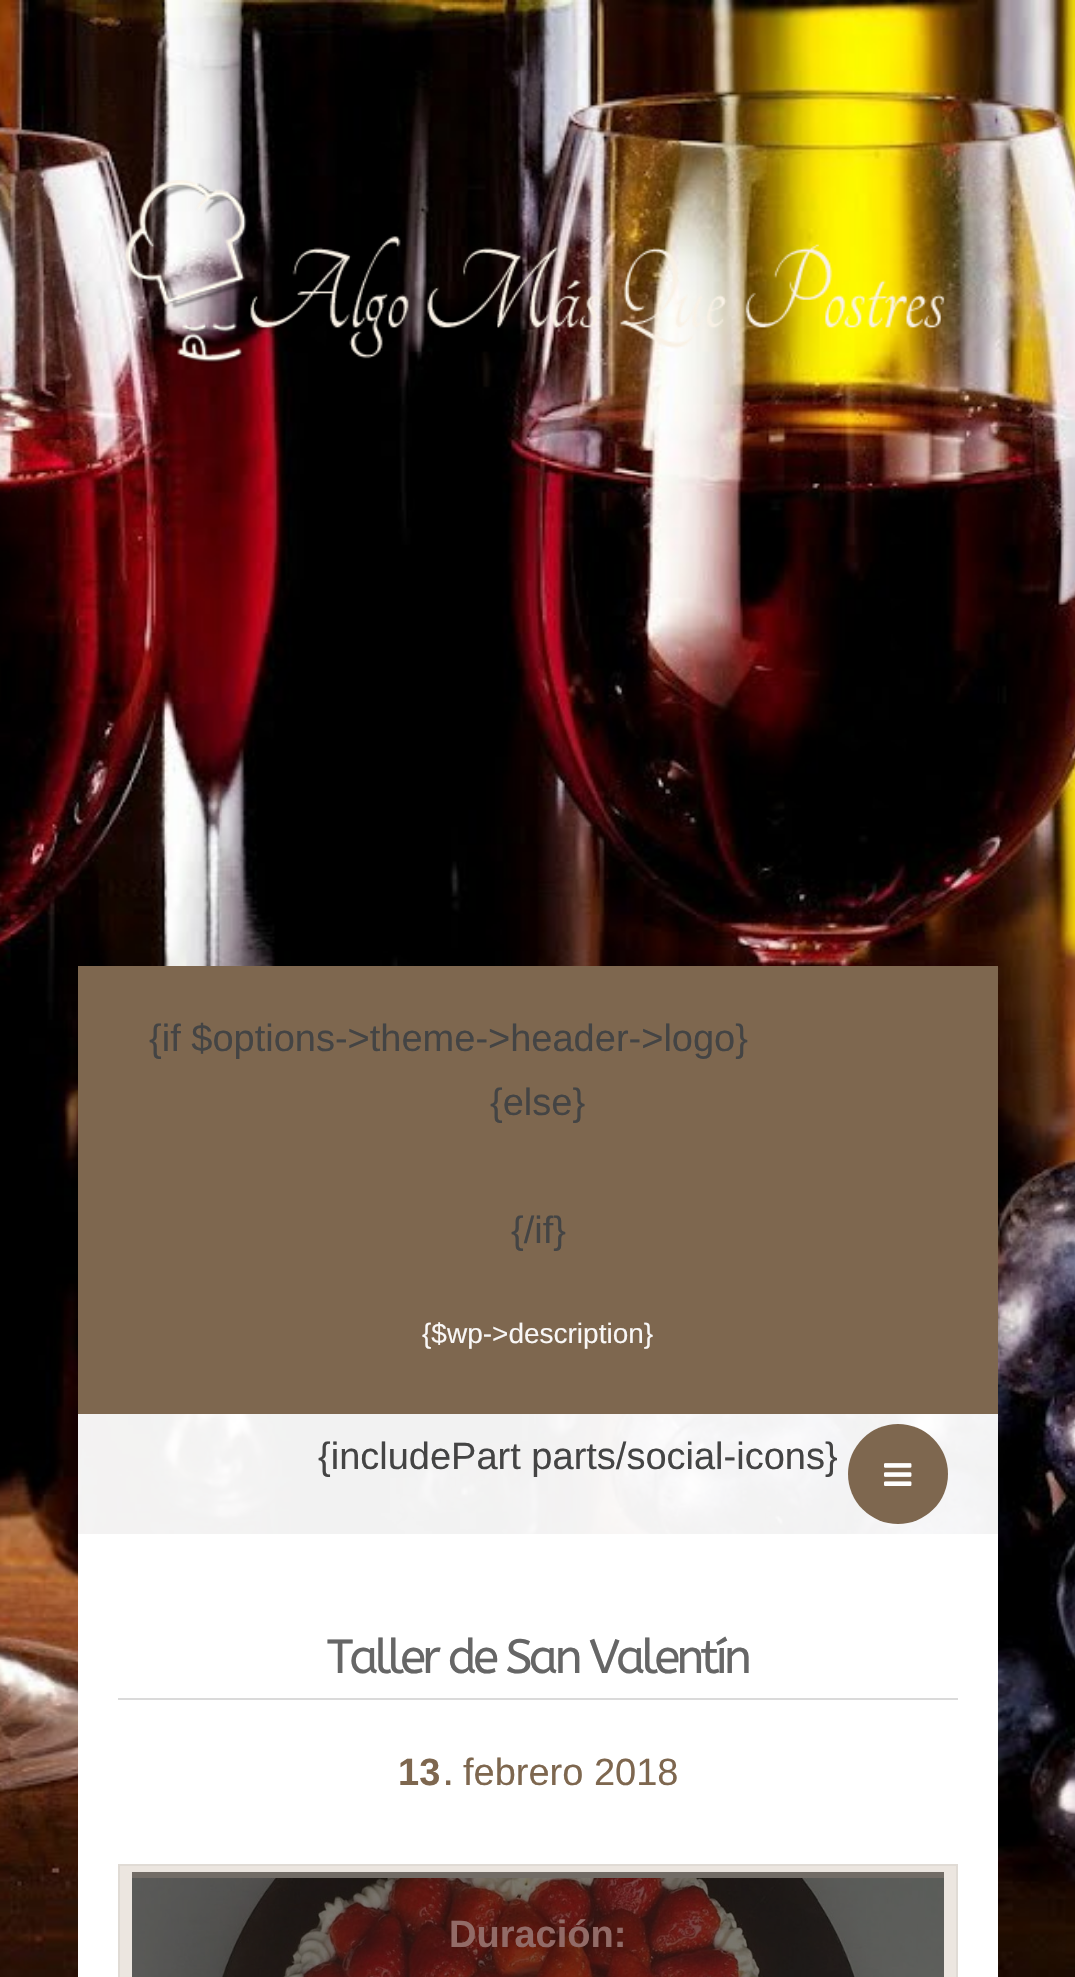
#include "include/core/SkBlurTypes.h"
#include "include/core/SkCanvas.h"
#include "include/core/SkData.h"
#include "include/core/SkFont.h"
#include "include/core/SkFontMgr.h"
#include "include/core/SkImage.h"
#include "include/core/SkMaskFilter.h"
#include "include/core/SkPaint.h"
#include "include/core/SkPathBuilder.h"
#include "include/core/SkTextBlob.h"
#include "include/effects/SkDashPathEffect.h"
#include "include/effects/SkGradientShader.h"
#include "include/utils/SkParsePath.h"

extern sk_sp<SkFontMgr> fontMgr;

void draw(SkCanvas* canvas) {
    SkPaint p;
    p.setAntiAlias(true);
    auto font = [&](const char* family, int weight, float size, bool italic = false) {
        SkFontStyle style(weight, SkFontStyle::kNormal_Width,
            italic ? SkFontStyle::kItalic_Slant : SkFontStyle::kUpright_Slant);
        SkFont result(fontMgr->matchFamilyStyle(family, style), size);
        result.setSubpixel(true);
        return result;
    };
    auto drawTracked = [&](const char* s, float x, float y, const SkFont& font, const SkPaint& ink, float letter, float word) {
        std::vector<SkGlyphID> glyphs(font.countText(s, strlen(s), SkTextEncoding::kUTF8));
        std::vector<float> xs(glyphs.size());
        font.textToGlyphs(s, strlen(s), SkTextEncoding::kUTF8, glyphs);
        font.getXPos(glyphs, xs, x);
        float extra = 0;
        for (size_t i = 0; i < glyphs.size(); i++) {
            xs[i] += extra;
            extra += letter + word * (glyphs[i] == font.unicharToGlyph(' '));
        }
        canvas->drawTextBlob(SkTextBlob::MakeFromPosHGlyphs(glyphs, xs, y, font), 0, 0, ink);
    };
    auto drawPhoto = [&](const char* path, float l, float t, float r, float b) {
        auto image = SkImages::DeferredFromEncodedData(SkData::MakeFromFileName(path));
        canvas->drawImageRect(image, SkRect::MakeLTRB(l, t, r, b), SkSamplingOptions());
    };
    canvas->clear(0xFFFFFFFF);
    drawPhoto("media/2.png", 0, 0, 1075, 1977);
    drawPhoto("media/1.png", 125, 180, 945, 364);
    p.setColor(0xF2FFFFFF);
    canvas->drawRect(SkRect::MakeLTRB(78, 1414, 998, 1534), p);
    p.setColor(0xFF7E674F);
    canvas->drawRect(SkRect::MakeLTRB(78, 966, 998, 1414), p);
    auto font1 = font("Liberation Sans", 400, 38);
    p.setColor(0xFF444444);
    {
        const struct { const char* s; float x, y; } items[] = {
            {"{if $options->theme->header->logo}", 149, 1051},
            {"{else}", 490, 1115},
            {"{/if}", 511, 1243},
        };
        for (auto [s, x, y] : items) {
            canvas->drawString(s, x, y, font1, p);
        }
    }
    auto font2 = font("Liberation Sans", 400, 28);
    p.setColor(0xFFF9F7F6);
    canvas->drawString("{$wp->description}", 422, 1343, font2, p);
    p.setColor(0xFF444444);
    canvas->drawString("{includePart parts/social-icons}", 318, 1469, font1, p);
    p.setColor(0xFF7E674F);
    canvas->drawCircle(898, 1474, 50, p);
    drawPhoto("media/3.png", 884, 1463, 912, 1486);
    {
        const struct { float l, t, r, b; SkColor color; } items[] = {
            {78, 1534, 998, 1977, 0xF2FFFFFF},
            {78, 1534, 998, 1977, 0xF2FFFFFF},
            {118, 1698, 958, 1700, 0xFFDADADA},
        };
        for (auto [l, t, r, b, color] : items) {
            p.setColor(color);
            canvas->drawRect(SkRect::MakeLTRB(l, t, r, b), p);
        }
    }
    auto font3 = font("ABeeZee", 400, 48);
    p.setColor(0xFF666666);
    drawTracked("Taller de San Valentín", 327, 1673, font3, p, -4, 0);
    auto font4 = font("Liberation Sans", 700, 38);
    p.setColor(0xFF7E674F);
    canvas->drawString("13", 398, 1785, font4, p);
    auto font5 = font("Liberation Sans", 700, 30);
    canvas->drawString(".", 444, 1785, font5, p);
    canvas->drawString("febrero 2018", 463, 1785, font1, p);
    p.setColor(0xFFECE6E0);
    canvas->drawRect(SkRect::MakeLTRB(119, 1865, 957, 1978), p);
    p.setStyle(SkPaint::kStroke_Style);
    p.setStrokeWidth(2);
    p.setColor(0xFFE0DBD5);
    canvas->drawRect(SkRect::MakeLTRB(119, 1865, 957, 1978), p);
    drawPhoto("media/4.png", 132, 1878, 944, 1977);
    p.setStyle(SkPaint::kFill_Style);
    p.setColor(0x99201A14);
    canvas->drawRect(SkRect::MakeLTRB(132, 1872, 944, 1977), p);
    p.setColor(0xFF926B67);
    canvas->drawString("Duración:", 449, 1947, font4, p);
}
